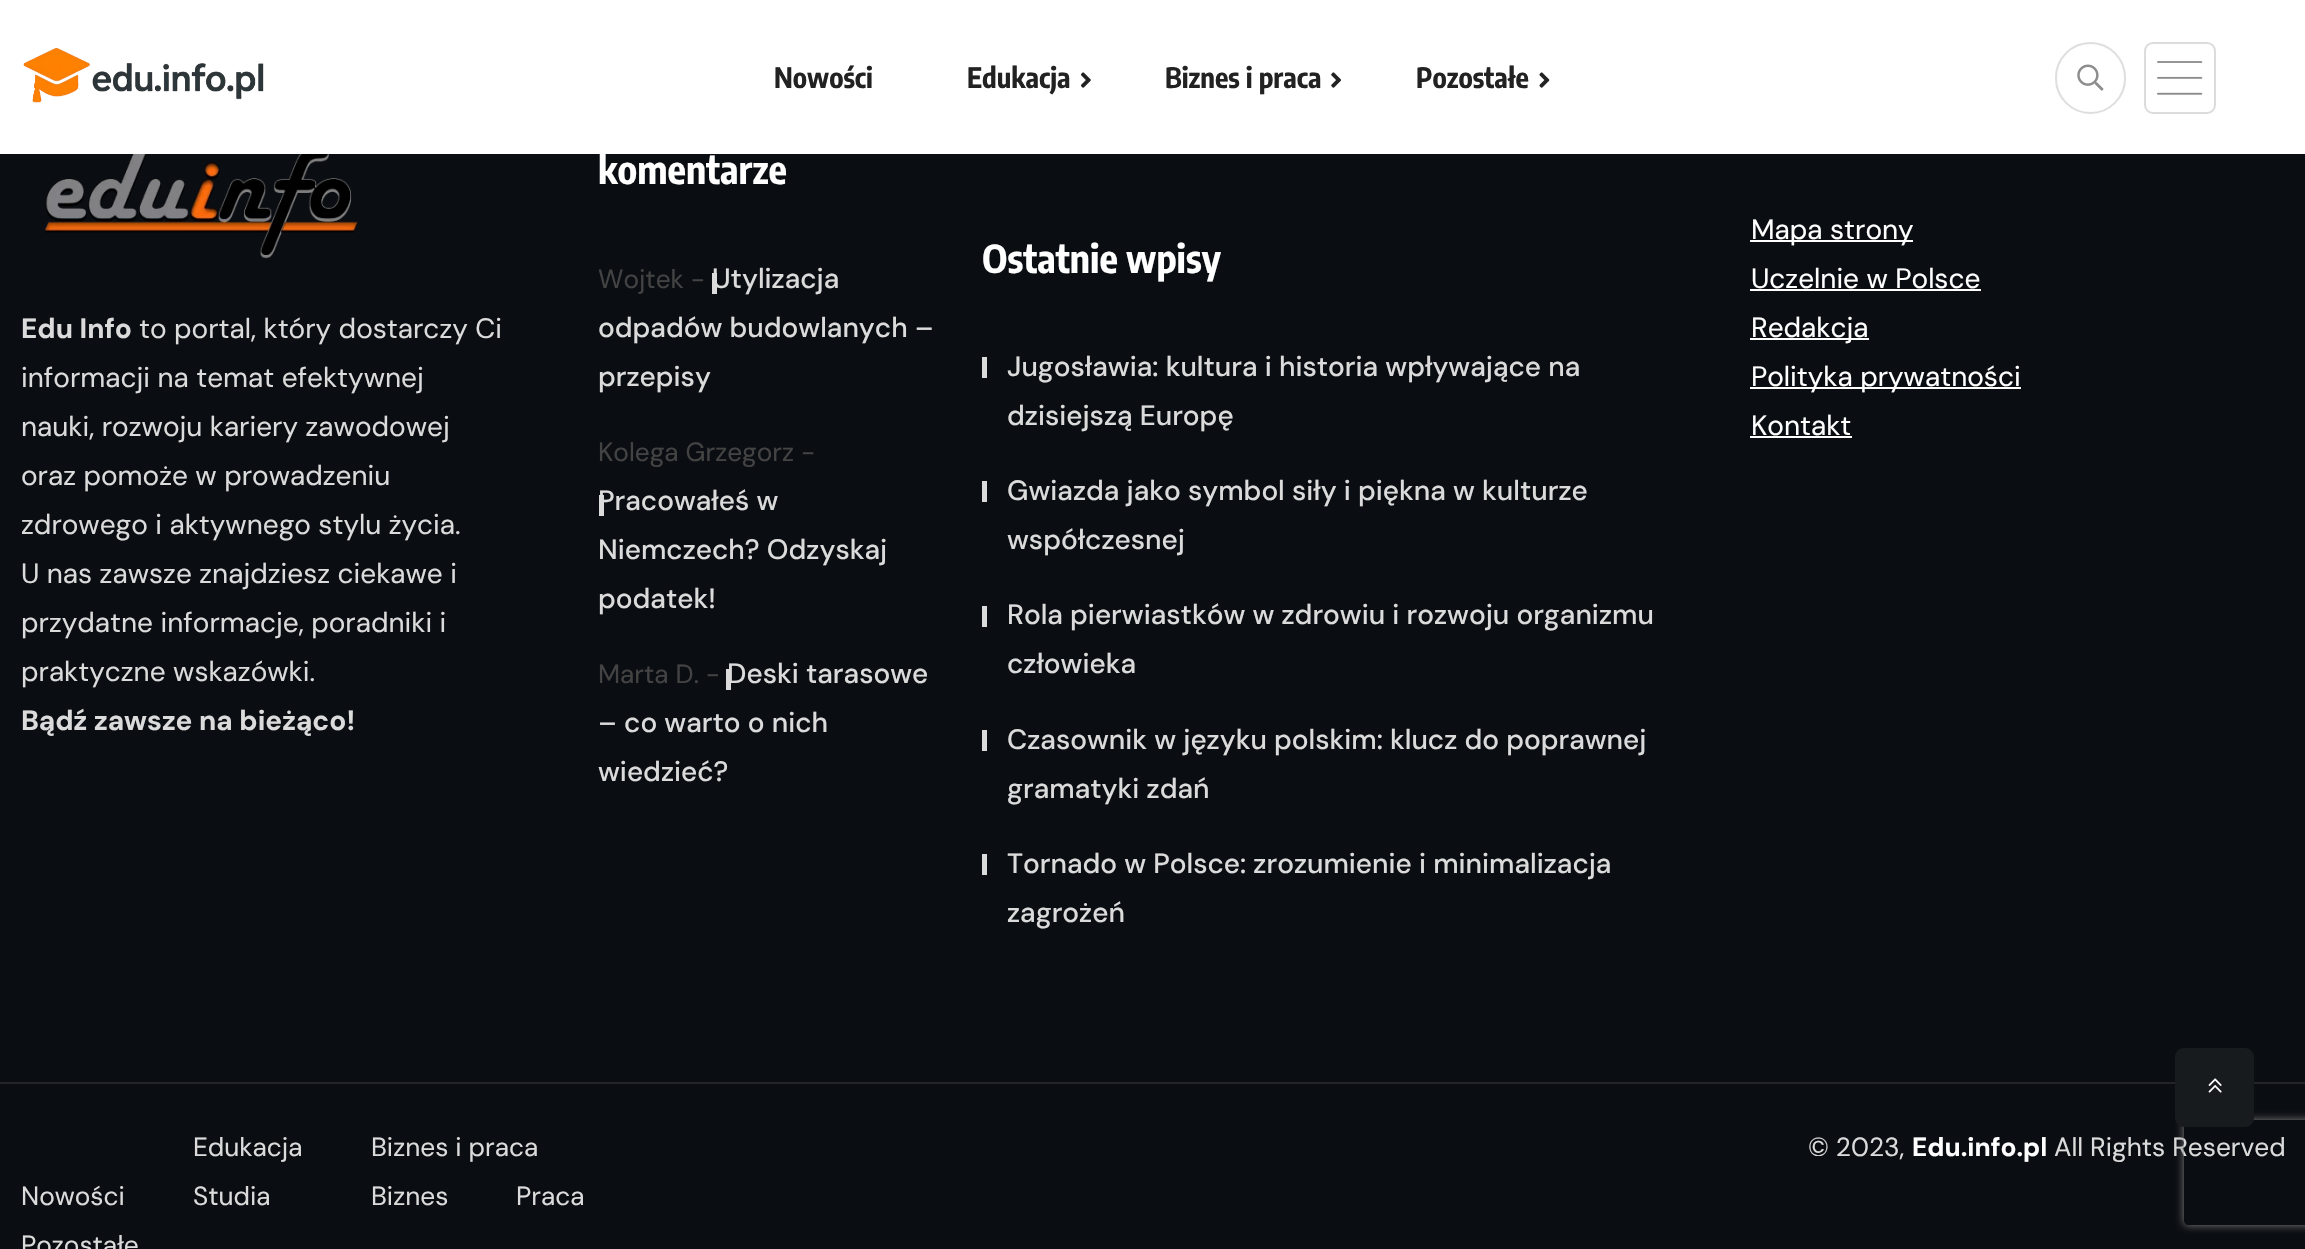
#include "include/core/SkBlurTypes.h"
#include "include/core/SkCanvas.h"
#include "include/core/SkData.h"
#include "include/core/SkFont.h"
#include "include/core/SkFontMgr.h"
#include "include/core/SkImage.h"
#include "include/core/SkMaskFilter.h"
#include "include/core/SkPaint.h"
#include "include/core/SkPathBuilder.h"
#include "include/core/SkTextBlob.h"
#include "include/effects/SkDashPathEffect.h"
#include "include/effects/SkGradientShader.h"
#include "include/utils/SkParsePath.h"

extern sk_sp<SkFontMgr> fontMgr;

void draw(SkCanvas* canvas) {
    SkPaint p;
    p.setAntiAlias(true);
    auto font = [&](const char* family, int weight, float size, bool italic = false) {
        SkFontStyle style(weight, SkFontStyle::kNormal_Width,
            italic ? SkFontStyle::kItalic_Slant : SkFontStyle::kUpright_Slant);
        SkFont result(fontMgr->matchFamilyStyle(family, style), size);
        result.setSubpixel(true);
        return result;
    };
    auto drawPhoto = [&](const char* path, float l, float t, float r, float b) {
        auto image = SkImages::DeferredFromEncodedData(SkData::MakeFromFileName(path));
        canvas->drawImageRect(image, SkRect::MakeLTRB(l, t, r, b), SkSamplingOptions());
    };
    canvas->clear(0xFF0A0D12);
    p.setColor(0xFFFFFFFF);
    canvas->drawRect(SkRect::MakeLTRB(0, 0, 2305, 154), p);
    drawPhoto("media/1.png", 23, 48, 264, 103);
    auto font1 = font("Encode Sans Condensed", 700, 28);
    p.setColor(0xFF222222);
    canvas->drawString("Nowości", 774, 88, font1, p);
    canvas->drawString("Edukacja", 967, 88, font1, p);
    drawPhoto("media/2.png", 1081, 72, 1091, 88);
    canvas->drawString("Biznes i praca", 1165, 88, font1, p);
    drawPhoto("media/3.png", 1331, 72, 1341, 88);
    canvas->drawString("Pozostałe", 1416, 88, font1, p);
    drawPhoto("media/4.png", 1539, 72, 1550, 88);
    p.setStyle(SkPaint::kStroke_Style);
    p.setStrokeWidth(2);
    p.setColor(0xFFDDDEDF);
    canvas->drawRoundRect(SkRect::MakeLTRB(2056, 43, 2125, 113), 34.5f, 34.5f, p);
    drawPhoto("media/5.png", 2077, 64, 2104, 91);
    p.setColor(0xFFDBDCDD);
    canvas->drawRoundRect(SkRect::MakeLTRB(2145, 43, 2215, 113), 8, 8, p);
    drawPhoto("media/6.png", 2157, 61, 2203, 95);
    drawPhoto("media/7.png", 44, 154, 358, 259);
    auto font2 = font("DM Sans", 700, 28);
    p.setStyle(SkPaint::kFill_Style);
    p.setColor(0xFFDBDBDB);
    canvas->drawString("Edu Info", 21, 338, font2, p);
    auto font3 = font("DM Sans", 400, 28);
    {
        const struct { const char* s; float x, y; } items[] = {
            {"to portal, który dostarczy Ci", 139, 338},
            {"informacji na temat efektywnej", 21, 387},
            {"nauki, rozwoju kariery zawodowej", 21, 436},
            {"oraz pomoże w prowadzeniu", 21, 485},
            {"zdrowego i aktywnego stylu życia.", 21, 534},
            {"U nas zawsze znajdziesz ciekawe i", 21, 583},
            {"przydatne informacje, poradniki i", 21, 632},
            {"praktyczne wskazówki.", 21, 681},
        };
        for (auto [s, x, y] : items) {
            canvas->drawString(s, x, y, font3, p);
        }
    }
    canvas->drawString("Bądź zawsze na bieżąco!", 21, 730, font2, p);
    auto font4 = font("Encode Sans Condensed", 700, 38.5f);
    p.setColor(0xFFFFFFFF);
    canvas->drawString("komentarze", 598, 184, font4, p);
    auto font5 = font("DM Sans", 500, 28);
    p.setColor(0xFFDBDBDB);
    canvas->drawString("Utylizacja", 712, 288, font5, p);
    canvas->drawRect(SkRect::MakeLTRB(712, 273, 717, 294), p);
    canvas->drawString("odpadów budowlanych –", 598, 337, font5, p);
    canvas->drawString("przepisy", 598, 386, font5, p);
    auto font6 = font("DM Sans", 400, 26.25f);
    p.setColor(0xFF434343);
    canvas->drawString("Wojtek -", 598, 288, font6, p);
    canvas->drawString("Kolega Grzegorz -", 598, 461, font6, p);
    p.setColor(0xFFDBDBDB);
    canvas->drawString("Pracowałeś w", 598, 510, font5, p);
    canvas->drawRect(SkRect::MakeLTRB(599, 495, 604, 516), p);
    {
        const struct { const char* s; float x, y; } items[] = {
            {"Niemczech? Odzyskaj", 598, 559},
            {"podatek!", 598, 608},
            {"Deski tarasowe", 727, 683},
        };
        for (auto [s, x, y] : items) {
            canvas->drawString(s, x, y, font5, p);
        }
    }
    canvas->drawRect(SkRect::MakeLTRB(726, 669, 731, 690), p);
    canvas->drawString("– co warto o nich", 598, 732, font5, p);
    canvas->drawString("wiedzieć?", 598, 781, font5, p);
    p.setColor(0xFF434343);
    canvas->drawString("Marta D. -", 598, 683, font6, p);
    p.setColor(0xFFFFFFFF);
    canvas->drawString("Ostatnie wpisy", 982, 273, font4, p);
    p.setColor(0xFFDBDBDB);
    canvas->drawRect(SkRect::MakeLTRB(982, 357, 987, 378), p);
    canvas->drawString("Jugosławia: kultura i historia wpływające na", 1007, 376, font5, p);
    canvas->drawString("dzisiejszą Europę", 1007, 425, font5, p);
    canvas->drawRect(SkRect::MakeLTRB(982, 481, 987, 502), p);
    canvas->drawString("Gwiazda jako symbol siły i piękna w kulturze", 1007, 500, font5, p);
    canvas->drawString("współczesnej", 1007, 549, font5, p);
    canvas->drawRect(SkRect::MakeLTRB(982, 606, 987, 627), p);
    canvas->drawString("Rola pierwiastków w zdrowiu i rozwoju organizmu", 1007, 624, font5, p);
    canvas->drawString("człowieka", 1007, 673, font5, p);
    canvas->drawRect(SkRect::MakeLTRB(982, 730, 987, 751), p);
    canvas->drawString("Czasownik w języku polskim: klucz do poprawnej", 1007, 749, font5, p);
    canvas->drawString("gramatyki zdań", 1007, 798, font5, p);
    canvas->drawRect(SkRect::MakeLTRB(982, 854, 987, 875), p);
    canvas->drawString("Tornado w Polsce: zrozumienie i minimalizacja", 1007, 873, font5, p);
    canvas->drawString("zagrożeń", 1007, 922, font5, p);
    p.setColor(0xFFFFFFFF);
    canvas->drawRect(SkRect::MakeLTRB(1750, 240, 1913, 242), p);
    canvas->drawString("Mapa strony", 1751, 239, font3, p);
    canvas->drawString("Uczelnie w Polsce", 1751, 288, font3, p);
    canvas->drawRect(SkRect::MakeLTRB(1750, 289, 1981, 291), p);
    canvas->drawRect(SkRect::MakeLTRB(1750, 338, 1869, 340), p);
    canvas->drawString("Redakcja", 1751, 337, font3, p);
    canvas->drawRect(SkRect::MakeLTRB(1750, 387, 2021, 389), p);
    canvas->drawString("Polityka prywatności", 1751, 386, font3, p);
    canvas->drawString("Kontakt", 1751, 435, font3, p);
    canvas->drawRect(SkRect::MakeLTRB(1750, 436, 1852, 438), p);
    p.setColor(0xFF222428);
    canvas->drawRect(SkRect::MakeLTRB(0, 1082, 2305, 1084), p);
    p.setColor(0xFFDBDBDB);
    {
        const struct { const char* s; float x, y; } items[] = {
            {"Nowości", 21, 1205},
            {"Edukacja", 193, 1156},
            {"Studia", 193, 1205},
            {"Biznes i praca", 371, 1156},
            {"Biznes", 371, 1205},
            {"Praca", 516, 1205},
            {"Pozostałe", 21, 1254},
            {"© 2023,", 1808, 1156},
        };
        for (auto [s, x, y] : items) {
            canvas->drawString(s, x, y, font6, p);
        }
    }
    auto font7 = font("DM Sans", 700, 26.25f);
    p.setColor(0xFFFFFFFF);
    canvas->drawString("Edu.info.pl", 1912, 1156, font7, p);
    p.setColor(0xFFDBDBDB);
    canvas->drawString("All Rights Reserved", 2054, 1156, font6, p);
    canvas->save();
    canvas->clipPath(SkPathBuilder(SkPathFillType::kEvenOdd).moveTo(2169, 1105).lineTo(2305, 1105).lineTo(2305, 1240).lineTo(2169, 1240).close().moveTo(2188, 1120).lineTo(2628, 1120).cubicTo(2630, 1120, 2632, 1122, 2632, 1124).lineTo(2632, 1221).cubicTo(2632, 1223, 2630, 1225, 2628, 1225).lineTo(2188, 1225).cubicTo(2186, 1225, 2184, 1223, 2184, 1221).lineTo(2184, 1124).cubicTo(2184, 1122, 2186, 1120, 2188, 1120).close().detach(), true);
    p.setColor(0xFF808080);
    p.setMaskFilter(SkMaskFilter::MakeBlur(kNormal_SkBlurStyle, 4.5f));
    canvas->drawRoundRect(SkRect::MakeLTRB(2184, 1120, 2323, 1225), 4, 4, p);
    p.setMaskFilter(nullptr);
    canvas->restore();
    p.setColor(0xFF181B1E);
    canvas->drawRoundRect(SkRect::MakeLTRB(2175, 1048, 2254, 1127), 9, 9, p);
    drawPhoto("media/8.png", 2208, 1078, 2222, 1093);
}
